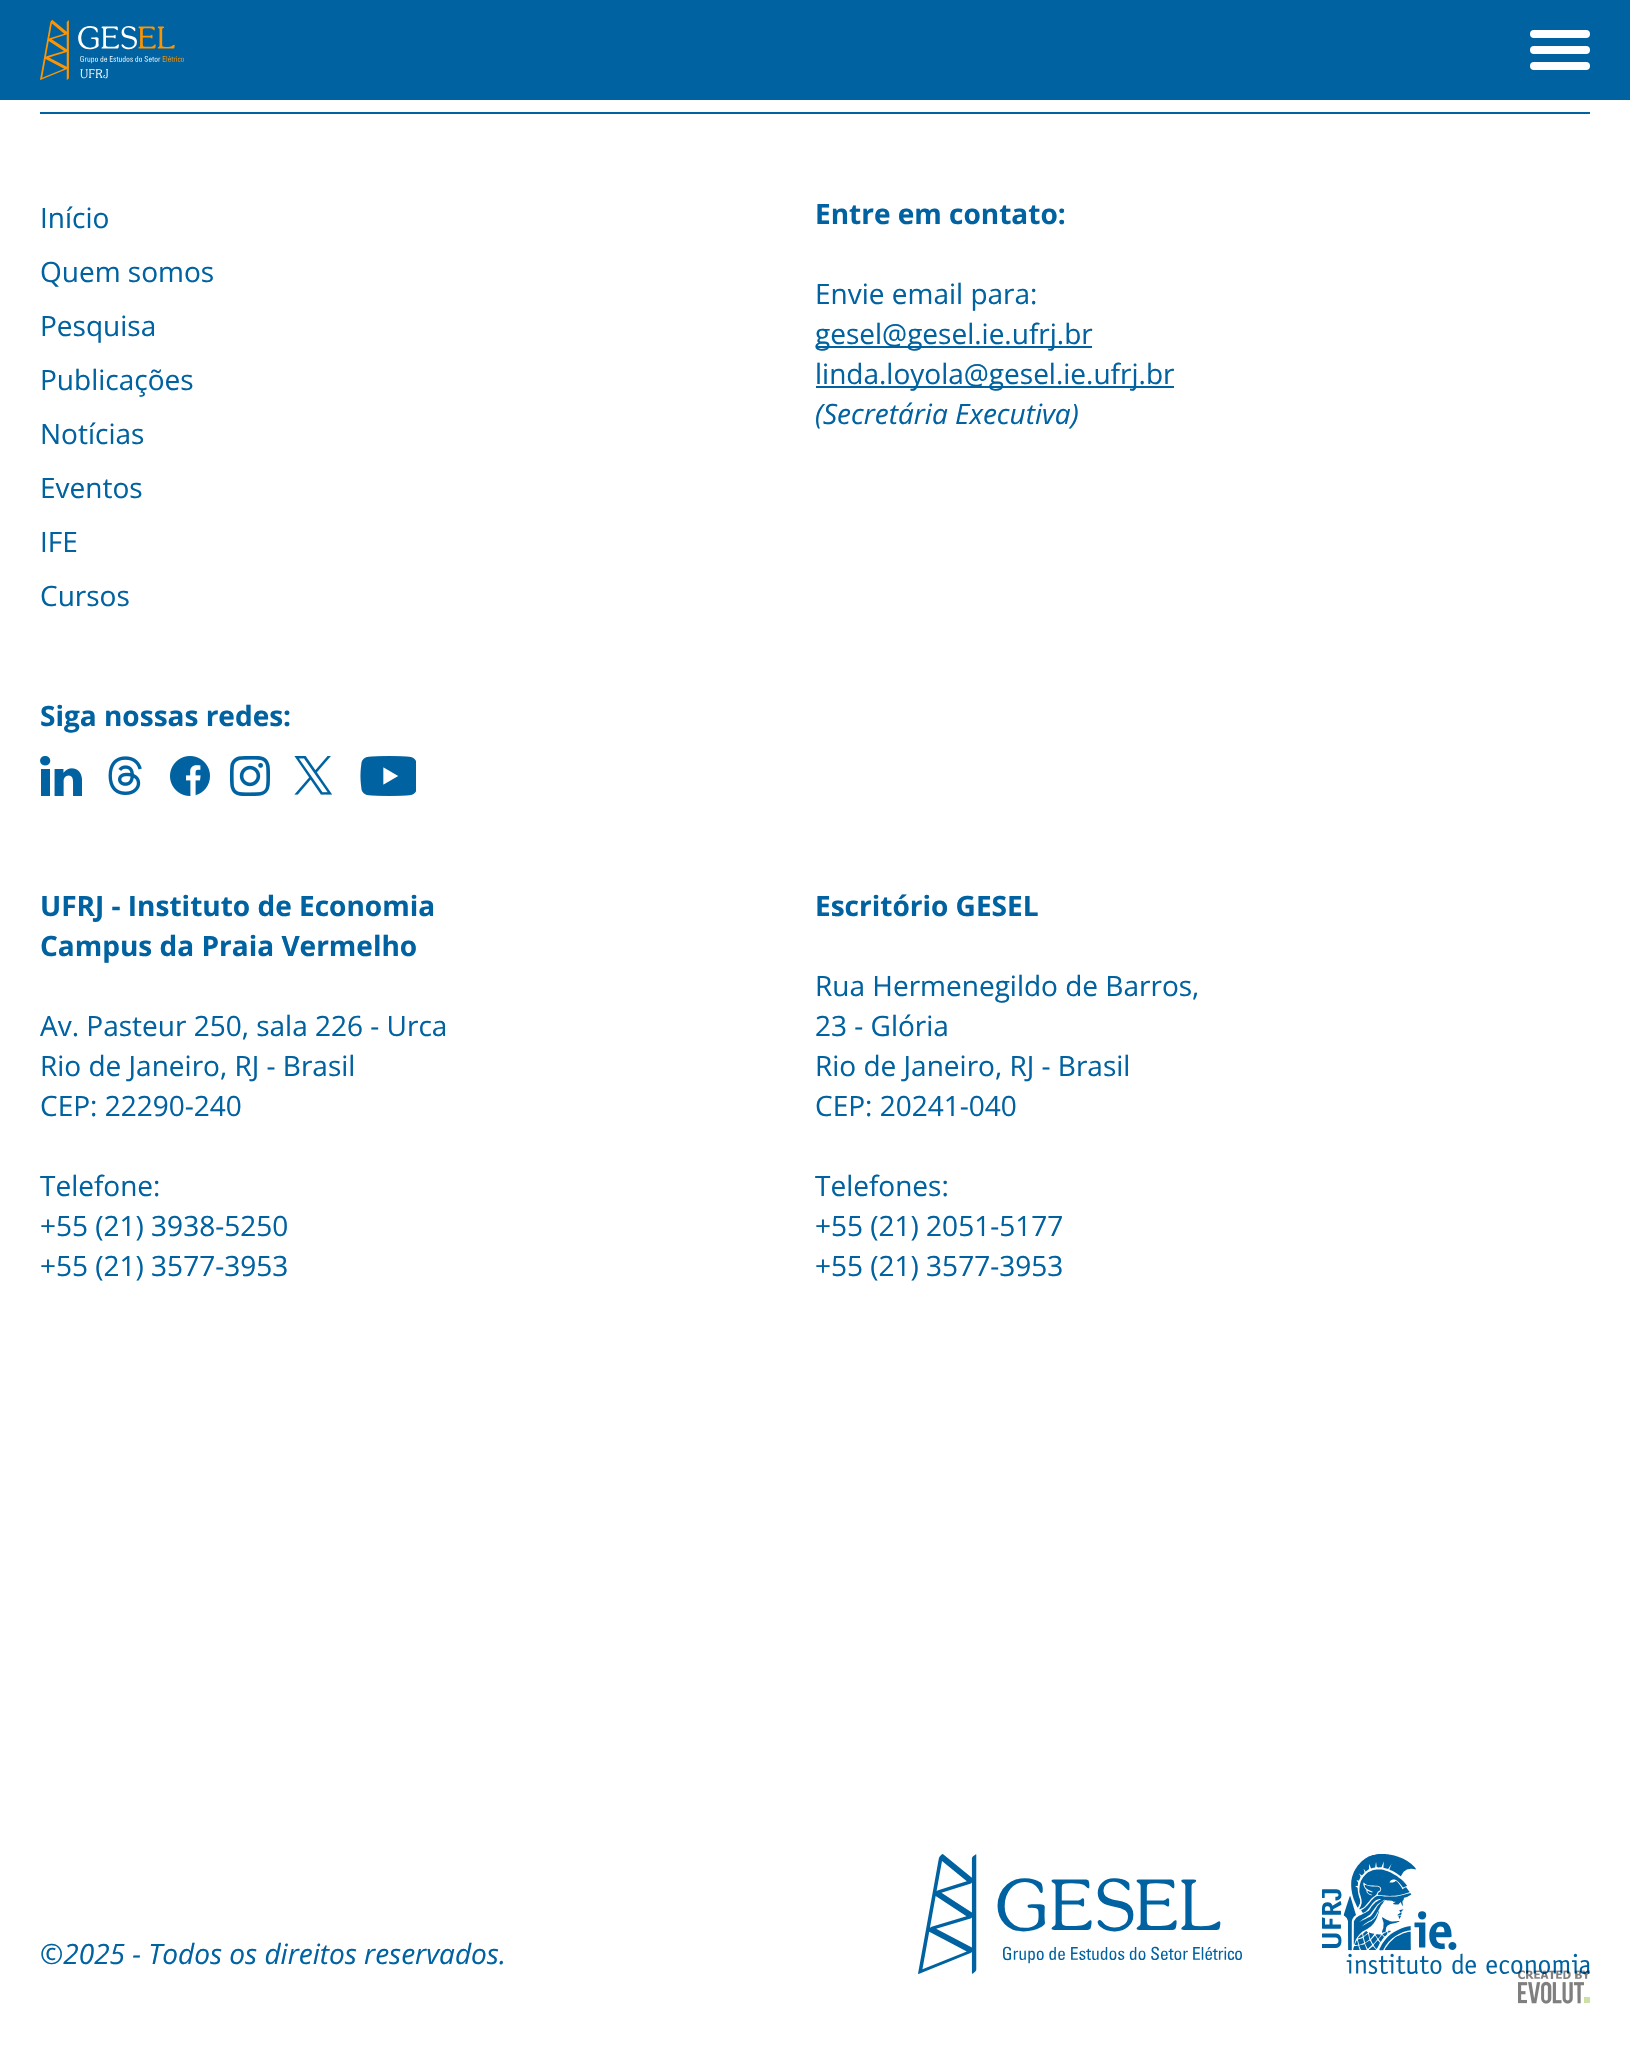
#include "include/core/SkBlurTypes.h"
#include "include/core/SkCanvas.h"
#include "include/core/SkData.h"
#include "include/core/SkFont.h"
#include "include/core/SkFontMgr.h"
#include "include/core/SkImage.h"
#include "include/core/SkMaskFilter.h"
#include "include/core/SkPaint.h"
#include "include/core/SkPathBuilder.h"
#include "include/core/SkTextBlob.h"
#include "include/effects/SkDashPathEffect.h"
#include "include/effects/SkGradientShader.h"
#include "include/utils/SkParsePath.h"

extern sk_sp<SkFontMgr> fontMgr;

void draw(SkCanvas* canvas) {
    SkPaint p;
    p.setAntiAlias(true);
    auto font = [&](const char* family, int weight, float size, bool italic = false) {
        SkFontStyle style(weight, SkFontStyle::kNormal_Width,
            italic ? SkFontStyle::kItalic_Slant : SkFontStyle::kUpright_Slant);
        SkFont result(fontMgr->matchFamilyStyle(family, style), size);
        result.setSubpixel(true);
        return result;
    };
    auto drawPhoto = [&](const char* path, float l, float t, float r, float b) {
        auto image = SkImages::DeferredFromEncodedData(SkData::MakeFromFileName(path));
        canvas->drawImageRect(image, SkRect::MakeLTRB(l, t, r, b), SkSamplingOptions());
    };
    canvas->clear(0xFFFFFFFF);
    p.setColor(0xFF0062A0);
    canvas->drawRect(SkRect::MakeLTRB(0, 0, 1630, 100), p);
    drawPhoto("media/1.png", 40, 20, 184, 80);
    p.setColor(0xFFFFFFFF);
    canvas->drawRoundRect(SkRect::MakeLTRB(1530, 30, 1590, 38), 4, 4, p);
    canvas->drawRoundRect(SkRect::MakeLTRB(1530, 46, 1590, 54), 4, 4, p);
    canvas->drawRoundRect(SkRect::MakeLTRB(1530, 62, 1590, 70), 4, 4, p);
    p.setColor(0xFF0062A0);
    canvas->drawRect(SkRect::MakeLTRB(40, 112, 1590, 114), p);
    auto font1 = font("Open Sans", 400, 28);
    {
        const struct { const char* s; float x, y; } items[] = {
            {"Início", 40, 228},
            {"Quem somos", 40, 282},
            {"Pesquisa", 40, 336},
            {"Publicações", 40, 390},
            {"Notícias", 40, 444},
            {"Eventos", 40, 498},
            {"IFE", 40, 552},
            {"Cursos", 40, 606},
        };
        for (auto [s, x, y] : items) {
            canvas->drawString(s, x, y, font1, p);
        }
    }
    auto font2 = font("Open Sans", 700, 28);
    canvas->drawString("Siga nossas redes:", 40, 726, font2, p);
    drawPhoto("media/2.png", 40, 756, 82, 796);
    drawPhoto("media/3.png", 108, 756, 142, 795);
    drawPhoto("media/4.png", 170, 756, 210, 796);
    drawPhoto("media/5.png", 230, 756, 270, 796);
    drawPhoto("media/6.png", 294, 756, 332, 795);
    drawPhoto("media/7.png", 360, 756, 416, 796);
    canvas->drawString("Entre em contato:", 815, 224, font2, p);
    canvas->drawString("Envie email para:", 815, 304, font1, p);
    canvas->drawRect(SkRect::MakeLTRB(816, 346, 1092, 348), p);
    canvas->drawString("gesel@gesel.ie.ufrj.br", 815, 344, font1, p);
    canvas->drawRect(SkRect::MakeLTRB(816, 386, 1174, 388), p);
    canvas->drawString("linda.loyola@gesel.ie.ufrj.br", 815, 384, font1, p);
    auto font3 = font("Open Sans", 400, 28, true);
    canvas->drawString("(Secretária Executiva)", 815, 424, font3, p);
    canvas->drawString("UFRJ - Instituto de Economia", 40, 916, font2, p);
    canvas->drawString("Campus da Praia Vermelho", 40, 956, font2, p);
    {
        const struct { const char* s; float x, y; } items[] = {
            {"Av. Pasteur 250, sala 226 - Urca", 40, 1036},
            {"Rio de Janeiro, RJ - Brasil", 40, 1076},
            {"CEP: 22290-240", 40, 1116},
            {"Telefone:", 40, 1196},
            {"+55 (21) 3938-5250", 40, 1236},
            {"+55 (21) 3577-3953", 40, 1276},
        };
        for (auto [s, x, y] : items) {
            canvas->drawString(s, x, y, font1, p);
        }
    }
    canvas->drawString("Escritório GESEL", 815, 916, font2, p);
    {
        const struct { const char* s; float x, y; } items[] = {
            {"Rua Hermenegildo de Barros,", 815, 996},
            {"23 - Glória", 815, 1036},
            {"Rio de Janeiro, RJ - Brasil", 815, 1076},
            {"CEP: 20241-040", 815, 1116},
            {"Telefones:", 815, 1196},
            {"+55 (21) 2051-5177", 815, 1236},
            {"+55 (21) 3577-3953", 815, 1276},
        };
        for (auto [s, x, y] : items) {
            canvas->drawString(s, x, y, font1, p);
        }
    }
    canvas->drawString("©2025 - Todos os direitos reservados.", 40, 1964, font3, p);
    drawPhoto("media/8.png", 918, 1854, 1242, 1974);
    drawPhoto("media/9.png", 1322, 1854, 1590, 1974);
    drawPhoto("media/10.png", 1518, 1970, 1590, 2004);
}
